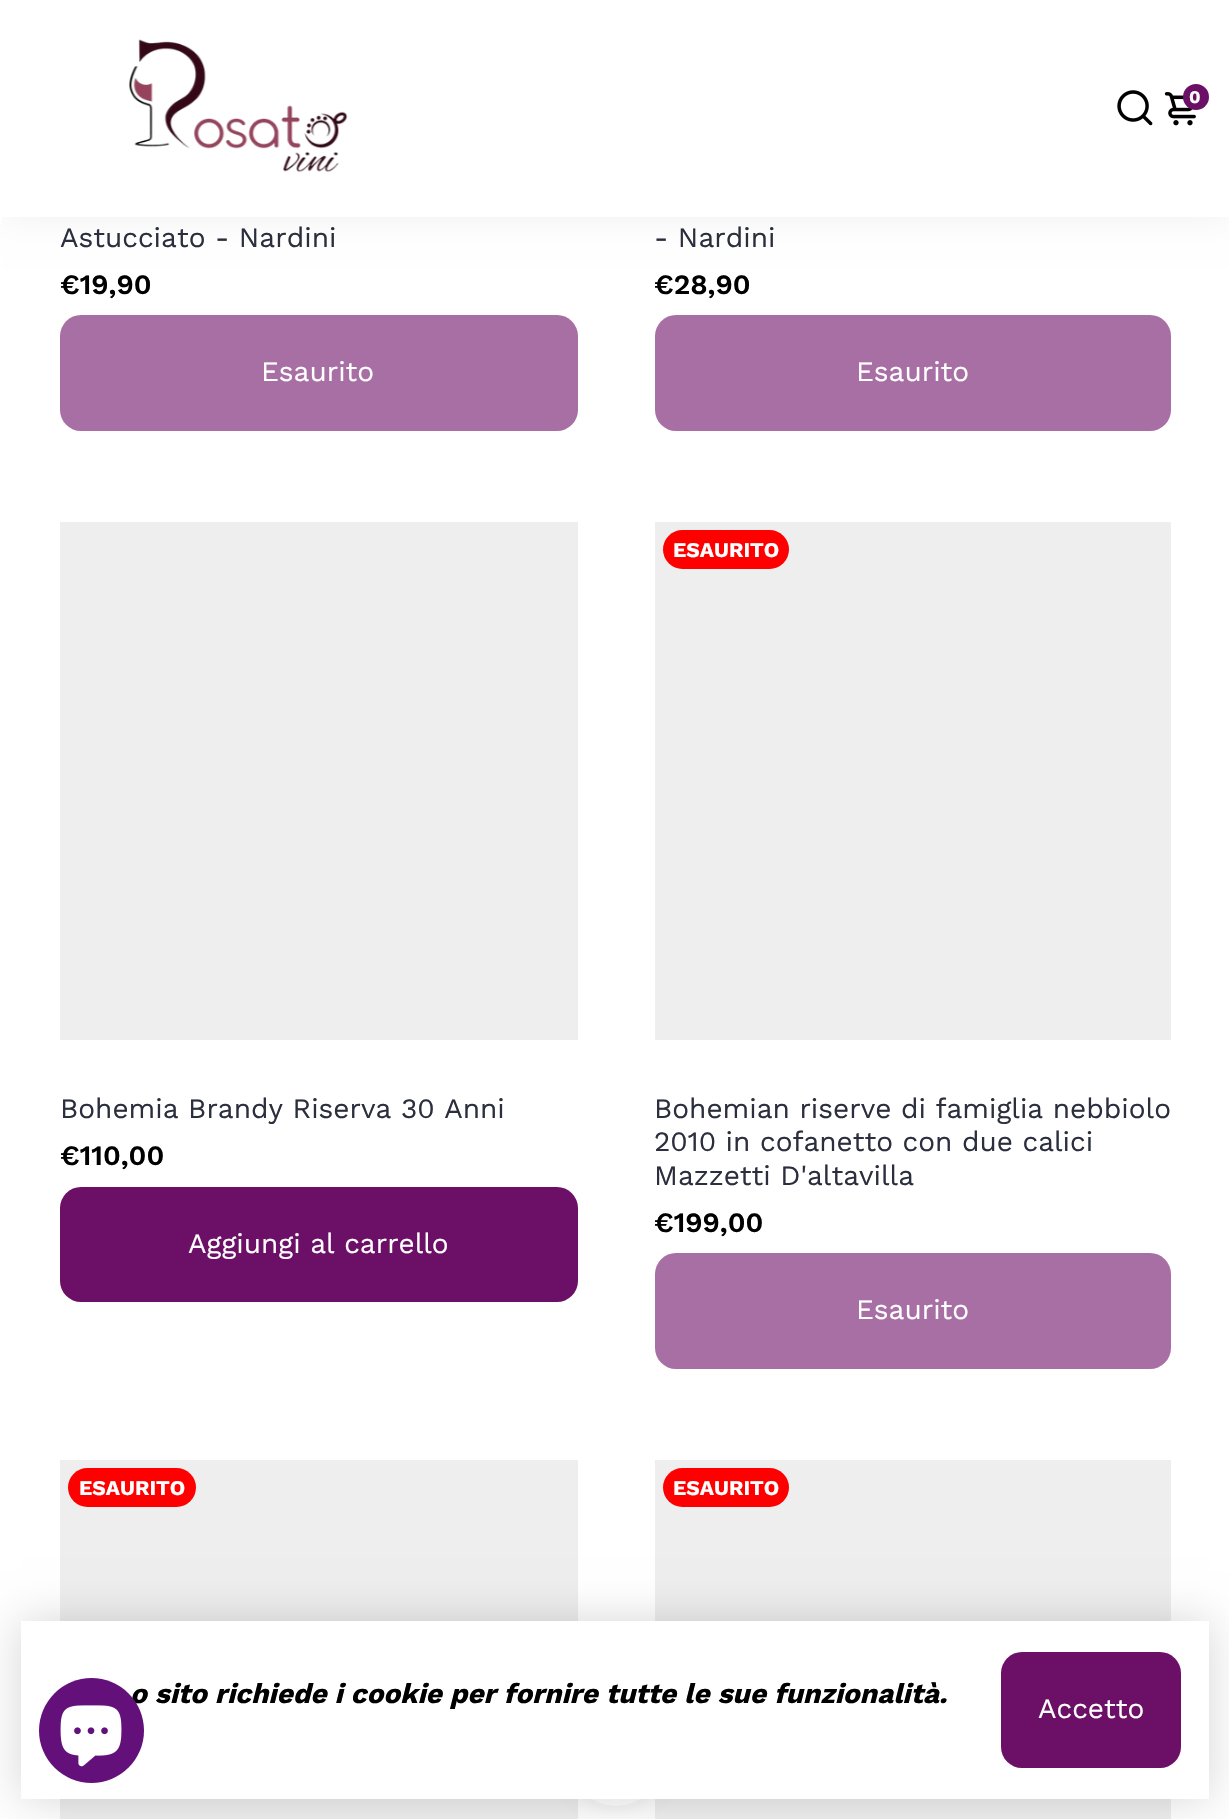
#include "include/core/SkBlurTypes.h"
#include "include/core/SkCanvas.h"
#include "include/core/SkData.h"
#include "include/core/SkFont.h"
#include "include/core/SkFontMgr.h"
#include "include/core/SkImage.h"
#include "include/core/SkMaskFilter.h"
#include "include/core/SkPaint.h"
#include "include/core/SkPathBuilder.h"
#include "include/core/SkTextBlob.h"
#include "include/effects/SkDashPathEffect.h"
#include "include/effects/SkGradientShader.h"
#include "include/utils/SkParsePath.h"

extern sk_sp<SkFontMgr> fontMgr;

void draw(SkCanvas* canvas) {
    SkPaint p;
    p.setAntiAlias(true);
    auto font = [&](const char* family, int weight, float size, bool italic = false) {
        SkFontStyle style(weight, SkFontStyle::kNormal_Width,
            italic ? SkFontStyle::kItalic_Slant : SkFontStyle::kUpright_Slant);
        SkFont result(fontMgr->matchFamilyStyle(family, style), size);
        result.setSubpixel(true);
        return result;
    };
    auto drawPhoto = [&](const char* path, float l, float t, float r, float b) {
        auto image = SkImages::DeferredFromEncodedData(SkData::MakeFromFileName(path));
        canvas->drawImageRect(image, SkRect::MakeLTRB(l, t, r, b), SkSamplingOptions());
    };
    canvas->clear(0xFFFFFFFF);
    p.setColor(0x0F000000);
    p.setMaskFilter(SkMaskFilter::MakeBlur(kNormal_SkBlurStyle, 17.5f));
    canvas->drawRect(SkRect::MakeLTRB(2, 0, 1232, 217), p);
    p.setMaskFilter(nullptr);
    p.setColor(0xFFFFFFFF);
    canvas->drawRect(SkRect::MakeLTRB(2, 0, 1229, 217), p);
    canvas->drawRect(SkRect::MakeLTRB(0, 0, 2, 224), p);
    drawPhoto("media/1.png", 128, 39, 348, 172);
    drawPhoto("media/2.png", 1117, 90, 1153, 126);
    drawPhoto("media/3.png", 1164, 92, 1196, 126);
    p.setColor(0xFF6C0F66);
    canvas->drawCircle(1196, 97, 13, p);
    auto font1 = font("Work Sans", 700, 18);
    p.setColor(0xFFFFFFFF);
    canvas->drawString("0", 1189, 103, font1, p);
    auto font2 = font("Work Sans", 400, 28);
    p.setColor(0xFF2B2F3D);
    canvas->drawString("Astucciato - Nardini", 60, 247, font2, p);
    auto font3 = font("Work Sans", 600, 28);
    p.setColor(0xFF000000);
    canvas->drawString("€19,90", 60, 294, font3, p);
    p.setColor(0xFFA76FA3);
    canvas->drawRoundRect(SkRect::MakeLTRB(60, 315, 578, 431), 21, 21, p);
    p.setColor(0xFFFFFFFF);
    canvas->drawString("Esaurito", 261, 381, font2, p);
    p.setColor(0xFF2B2F3D);
    canvas->drawString("- Nardini", 654, 247, font2, p);
    p.setColor(0xFF000000);
    canvas->drawString("€28,90", 654, 294, font3, p);
    p.setColor(0xFFA76FA3);
    canvas->drawRoundRect(SkRect::MakeLTRB(655, 315, 1171, 431), 21, 21, p);
    p.setColor(0xFFFFFFFF);
    canvas->drawString("Esaurito", 856, 381, font2, p);
    p.setColor(0xFFEEEEEE);
    canvas->drawRect(SkRect::MakeLTRB(60, 522, 578, 1040), p);
    p.setColor(0xFF2B2F3D);
    canvas->drawString("Bohemia Brandy Riserva 30 Anni", 60, 1118, font2, p);
    p.setColor(0xFF000000);
    canvas->drawString("€110,00", 60, 1165, font3, p);
    p.setColor(0xFF6C0F66);
    canvas->drawRoundRect(SkRect::MakeLTRB(60, 1187, 578, 1302), 21, 21, p);
    p.setColor(0xFFFFFFFF);
    canvas->drawString("Aggiungi al carrello", 188, 1253, font2, p);
    p.setColor(0xFFEEEEEE);
    canvas->drawRect(SkRect::MakeLTRB(655, 522, 1171, 1040), p);
    p.setColor(0xFFFF0000);
    canvas->drawRoundRect(SkRect::MakeLTRB(663, 530, 789, 569), 19.5f, 19.5f, p);
    auto font4 = font("Work Sans", 700, 21);
    p.setColor(0xFFFFFFFF);
    canvas->drawString("ESAURITO", 673, 557, font4, p);
    p.setColor(0xFF2B2F3D);
    {
        const struct { const char* s; float x, y; } items[] = {
            {"Bohemian riserve di famiglia nebbiolo", 654, 1118},
            {"2010 in cofanetto con due calici", 654, 1151},
            {"Mazzetti D'altavilla", 654, 1185},
        };
        for (auto [s, x, y] : items) {
            canvas->drawString(s, x, y, font2, p);
        }
    }
    p.setColor(0xFF000000);
    canvas->drawString("€199,00", 654, 1232, font3, p);
    p.setColor(0xFFA76FA3);
    canvas->drawRoundRect(SkRect::MakeLTRB(655, 1253, 1171, 1369), 21, 21, p);
    p.setColor(0xFFFFFFFF);
    canvas->drawString("Esaurito", 856, 1319, font2, p);
    p.setColor(0xFFEEEEEE);
    canvas->drawRect(SkRect::MakeLTRB(60, 1460, 578, 1819), p);
    p.setColor(0xFFFF0000);
    canvas->drawRoundRect(SkRect::MakeLTRB(68, 1468, 196, 1507), 19.5f, 19.5f, p);
    p.setColor(0xFFFFFFFF);
    canvas->drawString("ESAURITO", 79, 1495, font4, p);
    p.setColor(0xFFEEEEEE);
    canvas->drawRect(SkRect::MakeLTRB(655, 1460, 1171, 1819), p);
    p.setColor(0xFFFF0000);
    canvas->drawRoundRect(SkRect::MakeLTRB(663, 1468, 789, 1507), 19.5f, 19.5f, p);
    p.setColor(0xFFFFFFFF);
    canvas->drawString("ESAURITO", 673, 1495, font4, p);
    p.setColor(0x14000000);
    p.setMaskFilter(SkMaskFilter::MakeBlur(kNormal_SkBlurStyle, 9));
    canvas->drawRoundRect(SkRect::MakeLTRB(572, 1719, 660, 1806), 43.5f, 43.5f, p);
    p.setMaskFilter(nullptr);
    p.setColor(0xFFFFFFFF);
    canvas->drawRoundRect(SkRect::MakeLTRB(572, 1719, 660, 1806), 43.5f, 43.5f, p);
    p.setColor(0x29000000);
    p.setMaskFilter(SkMaskFilter::MakeBlur(kNormal_SkBlurStyle, 21));
    canvas->drawRect(SkRect::MakeLTRB(21, 1621, 1209, 1799), p);
    p.setMaskFilter(nullptr);
    p.setColor(0xFFFFFFFF);
    canvas->drawRect(SkRect::MakeLTRB(21, 1621, 1209, 1799), p);
    auto font5 = font("Work Sans", 700, 28, true);
    p.setColor(0xFF000000);
    canvas->drawString("o sito richiede i cookie per fornire tutte le sue funzionalità.", 130, 1703, font5, p);
    p.setColor(0xFF63107B);
    canvas->drawCircle(91.5f, 1730.5f, 52.5f, p);
    drawPhoto("media/4.png", 60, 1705, 122, 1767);
    p.setColor(0xFF6C0F66);
    canvas->drawRoundRect(SkRect::MakeLTRB(1001, 1652, 1181, 1768), 21, 21, p);
    p.setColor(0xFFFFFFFF);
    canvas->drawString("Accetto", 1038, 1718, font2, p);
}
